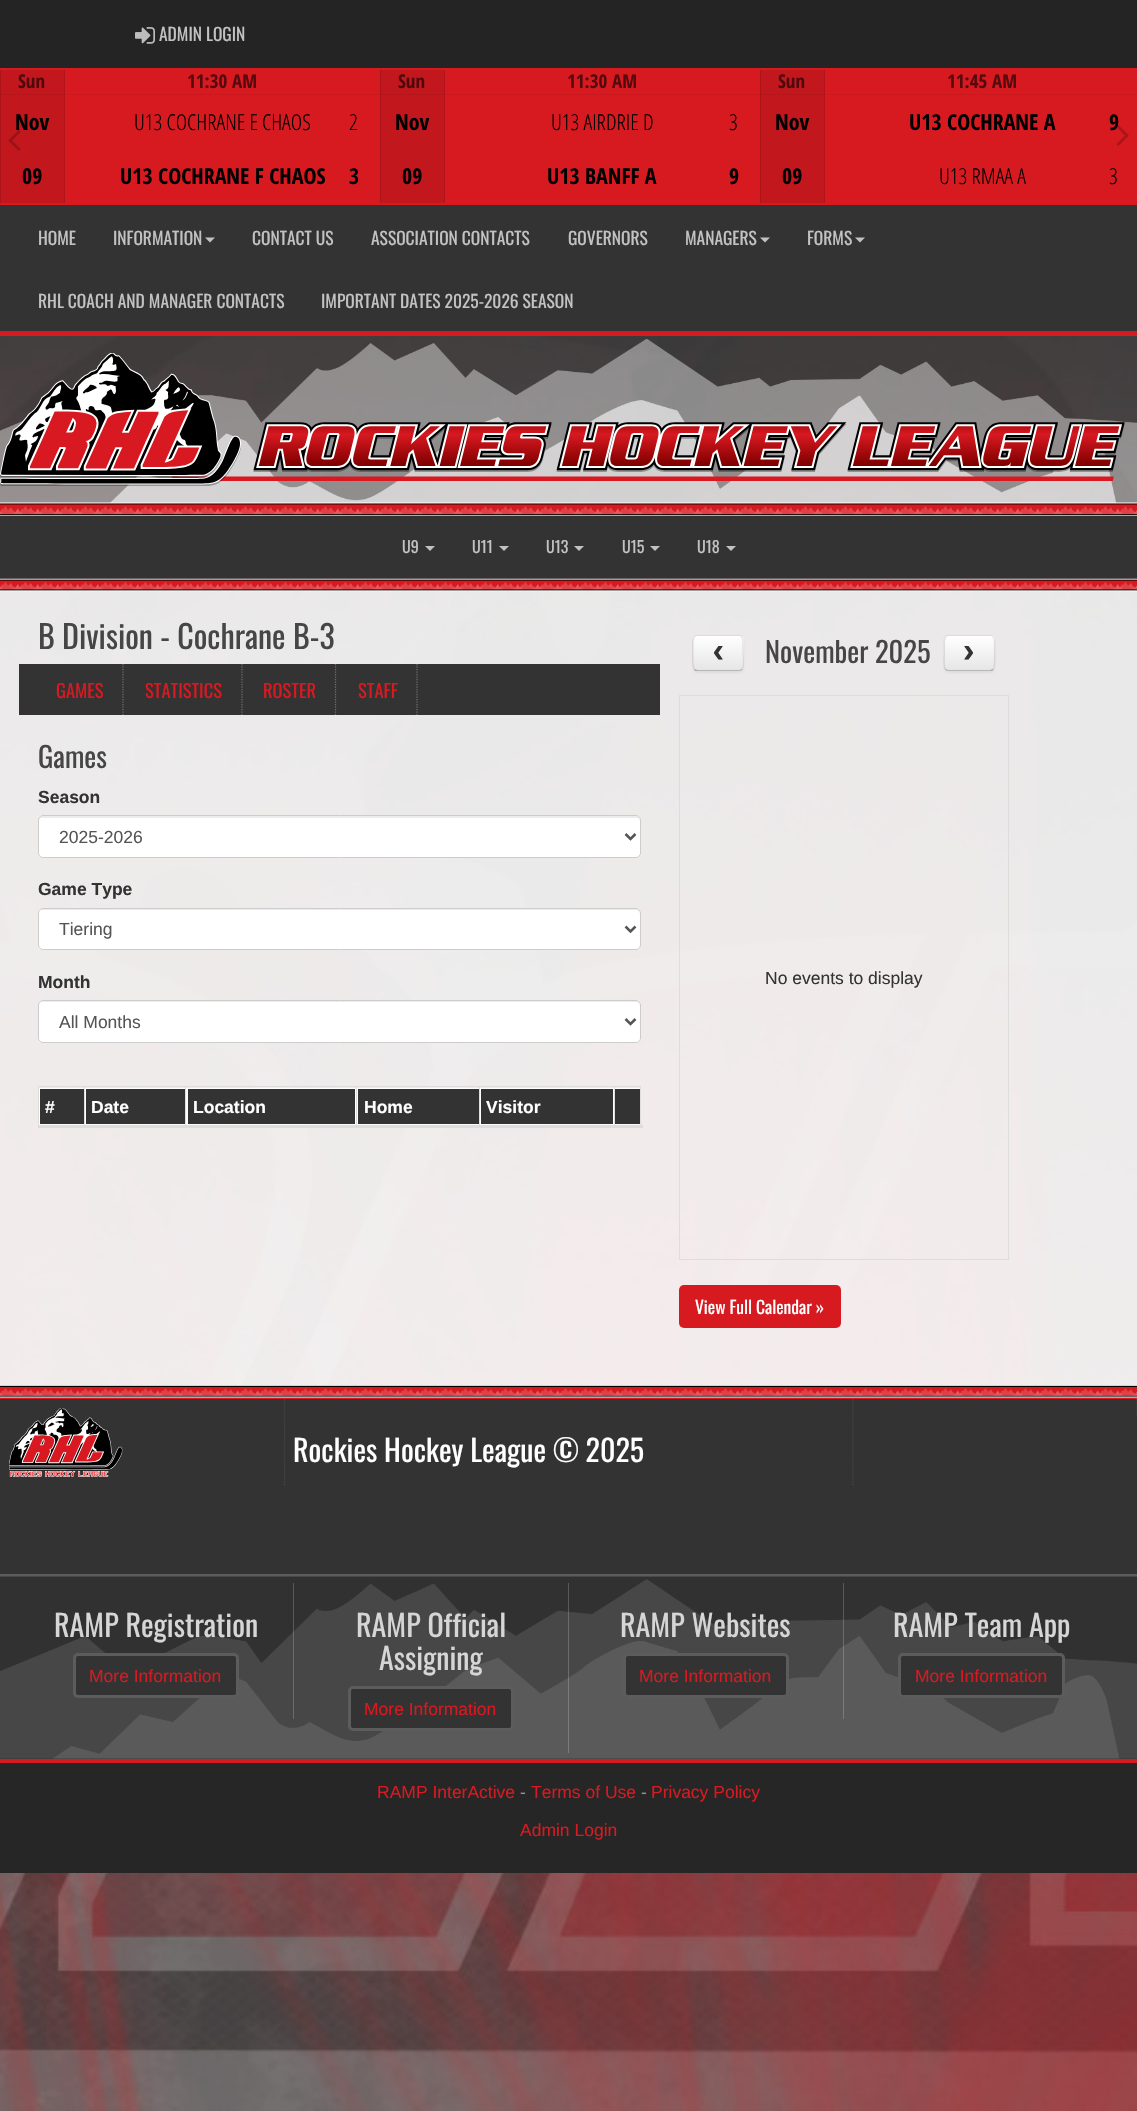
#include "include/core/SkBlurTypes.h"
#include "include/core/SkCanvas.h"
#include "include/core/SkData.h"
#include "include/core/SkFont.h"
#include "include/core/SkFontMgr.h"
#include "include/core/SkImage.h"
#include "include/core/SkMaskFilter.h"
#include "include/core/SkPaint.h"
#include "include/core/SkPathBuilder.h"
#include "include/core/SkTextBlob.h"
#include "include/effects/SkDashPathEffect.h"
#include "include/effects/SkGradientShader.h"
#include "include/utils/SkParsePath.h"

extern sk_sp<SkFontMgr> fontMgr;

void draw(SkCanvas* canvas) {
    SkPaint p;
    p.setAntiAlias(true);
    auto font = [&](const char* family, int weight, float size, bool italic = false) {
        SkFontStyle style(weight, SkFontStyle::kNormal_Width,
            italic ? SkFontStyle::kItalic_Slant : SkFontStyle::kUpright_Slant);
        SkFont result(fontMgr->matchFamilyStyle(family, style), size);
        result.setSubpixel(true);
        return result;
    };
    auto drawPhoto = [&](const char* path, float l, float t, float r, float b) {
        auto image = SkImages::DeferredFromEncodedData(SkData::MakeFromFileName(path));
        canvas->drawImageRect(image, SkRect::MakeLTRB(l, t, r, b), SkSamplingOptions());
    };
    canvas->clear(0xFFFFFFFF);
    p.setColor(0xFF242424);
    canvas->drawRect(SkRect::MakeLTRB(0, 0, 1137, 68), p);
    drawPhoto("media/1.png", 135, 27, 155, 44);
    auto font1 = font("Oswald", 400, 17.5f);
    p.setColor(0xFFC2C2C2);
    canvas->drawString("ADMIN LOGIN", 159, 41, font1, p);
    {
        const struct { float l, t, r, b; SkColor color; } items[] = {
            {0, 68, 1137, 205, 0xFFD71920},
            {0, 205, 1137, 331, 0xFF333333},
            {1, 70, 64, 203, 0xFFC2171D},
        };
        for (auto [l, t, r, b, color] : items) {
            p.setColor(color);
            canvas->drawRect(SkRect::MakeLTRB(l, t, r, b), p);
        }
    }
    auto font2 = font("Open Sans Condensed", 700, 21.9f);
    p.setColor(0xFF000000);
    canvas->drawString("Nov", 15, 130, font2, p);
    drawPhoto("media/2.png", 8, 130, 21, 151);
    {
        const struct { float l, t, r, b; SkColor color; } items[] = {
            {0, 70, 1, 203, 0xFFAC141A},
            {64, 70, 65, 203, 0xFFAF151A},
            {1, 94, 64, 95, 0xFFB6161B},
        };
        for (auto [l, t, r, b, color] : items) {
            p.setColor(color);
            canvas->drawRect(SkRect::MakeLTRB(l, t, r, b), p);
        }
    }
    auto font3 = font("Open Sans Condensed", 700, 19);
    p.setColor(0xFF4E090C);
    canvas->drawString("Sun", 18, 88, font3, p);
    p.setColor(0xFF000000);
    canvas->drawString("09", 22, 184, font2, p);
    p.setColor(0xFFCA181E);
    canvas->drawRect(SkRect::MakeLTRB(65, 94, 380, 95), p);
    p.setColor(0xFF560A0D);
    canvas->drawString("11:30 AM", 187, 88, font3, p);
    auto font4 = font("Open Sans Condensed", 300, 21.9f);
    p.setColor(0xFF000000);
    canvas->drawString("U13 COCHRANE E CHAOS", 134, 130, font4, p);
    canvas->drawString("U13 COCHRANE F CHAOS", 120, 184, font2, p);
    canvas->drawString("2", 349, 130, font4, p);
    canvas->drawString("3", 349, 184, font2, p);
    {
        const struct { float l, t, r, b; SkColor color; } items[] = {
            {380, 70, 381, 203, 0xFFAC141A},
            {381, 70, 444, 203, 0xFFC2171D},
            {444, 70, 445, 203, 0xFFAF151A},
            {381, 94, 444, 95, 0xFFB6161B},
        };
        for (auto [l, t, r, b, color] : items) {
            p.setColor(color);
            canvas->drawRect(SkRect::MakeLTRB(l, t, r, b), p);
        }
    }
    p.setColor(0xFF4E090C);
    canvas->drawString("Sun", 398, 88, font3, p);
    p.setColor(0xFF000000);
    canvas->drawString("Nov", 395, 130, font2, p);
    canvas->drawString("09", 402, 184, font2, p);
    p.setColor(0xFFCA181E);
    canvas->drawRect(SkRect::MakeLTRB(445, 94, 760, 95), p);
    p.setColor(0xFF560A0D);
    canvas->drawString("11:30 AM", 567, 88, font3, p);
    p.setColor(0xFF000000);
    canvas->drawString("U13 AIRDRIE D", 551, 130, font4, p);
    canvas->drawString("U13 BANFF A", 547, 184, font2, p);
    canvas->drawString("3", 729, 130, font4, p);
    canvas->drawString("9", 729, 184, font2, p);
    {
        const struct { float l, t, r, b; SkColor color; } items[] = {
            {760, 70, 761, 203, 0xFFAC141A},
            {761, 70, 824, 203, 0xFFC2171D},
            {824, 70, 825, 203, 0xFFAF151A},
            {761, 94, 824, 95, 0xFFB6161B},
        };
        for (auto [l, t, r, b, color] : items) {
            p.setColor(color);
            canvas->drawRect(SkRect::MakeLTRB(l, t, r, b), p);
        }
    }
    p.setColor(0xFF4E090C);
    canvas->drawString("Sun", 778, 88, font3, p);
    p.setColor(0xFF000000);
    canvas->drawString("Nov", 775, 130, font2, p);
    canvas->drawString("09", 782, 184, font2, p);
    p.setColor(0xFFCA181E);
    canvas->drawRect(SkRect::MakeLTRB(825, 94, 1137, 95), p);
    p.setColor(0xFF560A0D);
    canvas->drawString("11:45 AM", 947, 88, font3, p);
    p.setColor(0xFF000000);
    canvas->drawString("U13 COCHRANE A", 909, 130, font2, p);
    canvas->drawString("U13 RMAA A", 939, 184, font4, p);
    canvas->drawString("9", 1109, 130, font2, p);
    canvas->drawString("3", 1109, 184, font4, p);
    drawPhoto("media/3.png", 1116, 125, 1129, 146);
    p.setColor(0xFFD71920);
    canvas->drawRect(SkRect::MakeLTRB(0, 331, 1137, 336), p);
    p.setColor(0xFFC2C2C2);
    canvas->drawString("HOME", 38, 245, font1, p);
    canvas->drawString("INFORMATION", 113, 245, font1, p);
    canvas->drawPath(SkPathBuilder().moveTo(205, 237.5f).lineTo(215, 237.5f).lineTo(210, 242.5f).close().detach(), p);
    {
        const struct { const char* s; float x, y; } items[] = {
            {"CONTACT US", 252, 245},
            {"ASSOCIATION CONTACTS", 371, 245},
            {"GOVERNORS", 568, 245},
            {"MANAGERS", 685, 245},
        };
        for (auto [s, x, y] : items) {
            canvas->drawString(s, x, y, font1, p);
        }
    }
    canvas->drawPath(SkPathBuilder().moveTo(760, 237.5f).lineTo(770, 237.5f).lineTo(765, 242.5f).close().detach(), p);
    canvas->drawString("FORMS", 807, 245, font1, p);
    canvas->drawPath(SkPathBuilder().moveTo(855, 237.5f).lineTo(865, 237.5f).lineTo(860, 242.5f).close().detach(), p);
    canvas->drawString("RHL COACH AND MANAGER CONTACTS", 38, 308, font1, p);
    canvas->drawString("IMPORTANT DATES 2025-2026 SEASON", 321, 308, font1, p);
    drawPhoto("media/4.png", 0, 336, 1137, 2111);
    drawPhoto("media/5.png", 0, 336, 1137, 503);
    drawPhoto("media/6.png", 0, 353, 1125, 486);
    p.setColor(0xFFD71920);
    canvas->drawRect(SkRect::MakeLTRB(0, 504, 1137, 515), p);
    drawPhoto("media/7.png", 0, 502, 1137, 516);
    p.setColor(0xFF333333);
    canvas->drawRect(SkRect::MakeLTRB(0, 516, 1137, 579), p);
    auto font5 = font("Oswald", 400, 16);
    p.setColor(0xFFC2C2C2);
    canvas->drawString("U9", 402, 553, font5, p);
    canvas->drawPath(SkPathBuilder().moveTo(425, 546).lineTo(435, 546).lineTo(430, 551).close().detach(), p);
    canvas->drawString("U11", 472, 553, font5, p);
    canvas->drawPath(SkPathBuilder().moveTo(499, 546).lineTo(509, 546).lineTo(504, 551).close().detach(), p);
    canvas->drawString("U13", 546, 553, font5, p);
    canvas->drawPath(SkPathBuilder().moveTo(574, 546).lineTo(584, 546).lineTo(579, 551).close().detach(), p);
    canvas->drawString("U15", 622, 553, font5, p);
    canvas->drawPath(SkPathBuilder().moveTo(650, 546).lineTo(660, 546).lineTo(655, 551).close().detach(), p);
    canvas->drawString("U18", 697, 553, font5, p);
    canvas->drawPath(SkPathBuilder().moveTo(726, 546).lineTo(736, 546).lineTo(731, 551).close().detach(), p);
    p.setColor(0xFFD71920);
    canvas->drawRect(SkRect::MakeLTRB(0, 580, 1137, 590), p);
    p.setColor(0xE6FFFFFF);
    canvas->drawRect(SkRect::MakeLTRB(0, 591, 1137, 1385), p);
    drawPhoto("media/8.png", 0, 578, 1137, 592);
    auto font6 = font("Oswald", 400, 32);
    p.setColor(0xFF464646);
    canvas->drawString("B Division - Cochrane B-3", 38, 649, font6, p);
    p.setColor(0xFF333333);
    canvas->drawRect(SkRect::MakeLTRB(19, 664, 660, 715), p);
    p.setStyle(SkPaint::kStroke_Style);
    p.setStrokeWidth(1.2f);
    p.setColor(0xFF707070);
    p.setPathEffect(SkDashPathEffect::Make({{1.25f, 1.25f}}, 0));
    canvas->drawPath(SkPathBuilder().moveTo(123, 664).lineTo(123, 715).detach(), p);
    p.setPathEffect(nullptr);
    auto font7 = font("Oswald", 400, 18.5f);
    p.setStyle(SkPaint::kFill_Style);
    p.setColor(0xFFD71920);
    canvas->drawString("GAMES", 56, 698, font7, p);
    p.setStyle(SkPaint::kStroke_Style);
    p.setColor(0xFF707070);
    p.setPathEffect(SkDashPathEffect::Make({{1.25f, 1.25f}}, 0));
    canvas->drawPath(SkPathBuilder().moveTo(242, 664).lineTo(242, 715).detach(), p);
    p.setPathEffect(nullptr);
    p.setStyle(SkPaint::kFill_Style);
    p.setColor(0xFFD71920);
    canvas->drawString("STATISTICS", 145, 698, font7, p);
    p.setStyle(SkPaint::kStroke_Style);
    p.setColor(0xFF707070);
    p.setPathEffect(SkDashPathEffect::Make({{1.25f, 1.25f}}, 0));
    canvas->drawPath(SkPathBuilder().moveTo(335.5f, 664).lineTo(335.5f, 715).detach(), p);
    p.setPathEffect(nullptr);
    p.setStyle(SkPaint::kFill_Style);
    p.setColor(0xFFD71920);
    canvas->drawString("ROSTER", 263, 698, font7, p);
    p.setStyle(SkPaint::kStroke_Style);
    p.setColor(0xFF707070);
    p.setPathEffect(SkDashPathEffect::Make({{1.25f, 1.25f}}, 0));
    canvas->drawPath(SkPathBuilder().moveTo(417, 664).lineTo(417, 715).detach(), p);
    p.setPathEffect(nullptr);
    p.setStyle(SkPaint::kFill_Style);
    p.setColor(0xFFD71920);
    canvas->drawString("STAFF", 358, 698, font7, p);
    auto font8 = font("Oswald", 400, 28.5f);
    p.setColor(0xFF464646);
    canvas->drawString("Games", 38, 768, font8, p);
    auto font9 = font("Liberation Sans", 700, 17.5f);
    p.setColor(0xFF333333);
    canvas->drawString("Season", 38, 803, font9, p);
    p.setColor(0xFFFFFFFF);
    canvas->drawRoundRect(SkRect::MakeLTRB(38, 815, 641, 858), 5, 5, p);
    p.setColor(0xFFECECEC);
    canvas->drawPath(SkPathBuilder().moveTo(42, 818).lineTo(636, 818).cubicTo(638, 818, 640, 819, 640, 821).lineTo(640, 820).cubicTo(640, 818, 638, 816, 636, 816).lineTo(43, 816).cubicTo(41, 816, 39, 818, 39, 820).lineTo(39, 821).cubicTo(39, 819, 40, 818, 42, 818).close().detach(), p);
    p.setStyle(SkPaint::kStroke_Style);
    p.setStrokeWidth(1);
    p.setColor(0xFFCCCCCC);
    canvas->drawRoundRect(SkRect::MakeLTRB(38.5f, 815.5f, 640.5f, 857.5f), 4.5f, 4.5f, p);
    p.setStrokeWidth(2.5f);
    p.setColor(0xFF555555);
    canvas->drawPath(SkPathBuilder().moveTo(625.5f, 834).lineTo(630.5f, 839).lineTo(635.5f, 834).detach(), p);
    auto font10 = font("Liberation Sans", 400, 17.5f);
    p.setStyle(SkPaint::kFill_Style);
    canvas->drawString("2025-2026", 59, 843, font10, p);
    p.setColor(0xFF333333);
    canvas->drawString("Game Type", 38, 895, font9, p);
    p.setColor(0xFFFFFFFF);
    canvas->drawRoundRect(SkRect::MakeLTRB(38, 908, 641, 950), 5, 5, p);
    p.setColor(0xFFECECEC);
    canvas->drawPath(SkPathBuilder().moveTo(42, 910).lineTo(636, 910).cubicTo(638, 910, 640, 912, 640, 914).lineTo(640, 913).cubicTo(640, 911, 638, 909, 636, 909).lineTo(43, 909).cubicTo(41, 909, 39, 911, 39, 913).lineTo(39, 914).cubicTo(39, 912, 40, 910, 42, 910).close().detach(), p);
    p.setStyle(SkPaint::kStroke_Style);
    p.setStrokeWidth(1);
    p.setColor(0xFFCCCCCC);
    canvas->drawRoundRect(SkRect::MakeLTRB(38.5f, 908.5f, 640.5f, 949.5f), 4.5f, 4.5f, p);
    p.setStrokeWidth(2.5f);
    p.setColor(0xFF555555);
    canvas->drawPath(SkPathBuilder().moveTo(625.5f, 926.5f).lineTo(630.5f, 931.5f).lineTo(635.5f, 926.5f).detach(), p);
    p.setStyle(SkPaint::kFill_Style);
    canvas->drawString("Tiering", 59, 935, font10, p);
    p.setColor(0xFF333333);
    canvas->drawString("Month", 38, 988, font9, p);
    p.setColor(0xFFFFFFFF);
    canvas->drawRoundRect(SkRect::MakeLTRB(38, 1000, 641, 1043), 5, 5, p);
    p.setColor(0xFFECECEC);
    canvas->drawPath(SkPathBuilder().moveTo(42, 1002).lineTo(636, 1002).cubicTo(638, 1002, 640, 1004, 640, 1006).lineTo(640, 1005).cubicTo(640, 1003, 638, 1001, 636, 1001).lineTo(43, 1001).cubicTo(41, 1001, 39, 1003, 39, 1005).lineTo(39, 1006).cubicTo(39, 1004, 40, 1002, 42, 1002).close().detach(), p);
    p.setStyle(SkPaint::kStroke_Style);
    p.setStrokeWidth(1);
    p.setColor(0xFFCCCCCC);
    canvas->drawRoundRect(SkRect::MakeLTRB(38.5f, 1000.5f, 640.5f, 1042.5f), 4.5f, 4.5f, p);
    p.setStrokeWidth(2.5f);
    p.setColor(0xFF555555);
    canvas->drawPath(SkPathBuilder().moveTo(625.5f, 1019).lineTo(630.5f, 1024).lineTo(635.5f, 1019).detach(), p);
    p.setStyle(SkPaint::kFill_Style);
    canvas->drawString("All Months", 59, 1028, font10, p);
    {
        const struct { float l, t, r, b; SkColor color; } items[] = {
            {38, 1086, 641, 1087, 0xFFDDDDDD},
            {640, 1086, 641, 1128, 0xFFDDDDDD},
            {38, 1086, 39, 1128, 0xFFDDDDDD},
            {39, 1088, 640, 1125, 0xE6FFFFFF},
            {615, 1089, 640, 1124, 0xFF333333},
            {614, 1086, 615, 1128, 0xFFDDDDDD},
            {84, 1086, 85, 1128, 0xFFDDDDDD},
            {185, 1086, 186, 1128, 0xFFDDDDDD},
            {356, 1086, 357, 1128, 0xFFDDDDDD},
            {479, 1086, 480, 1128, 0xFFDDDDDD},
            {38, 1125, 643, 1128, 0xFFDDDDDD},
            {40, 1089, 84, 1124, 0xFF333333},
        };
        for (auto [l, t, r, b, color] : items) {
            p.setColor(color);
            canvas->drawRect(SkRect::MakeLTRB(l, t, r, b), p);
        }
    }
    p.setColor(0xFFFFFFFF);
    canvas->drawString("#", 45, 1113, font9, p);
    p.setColor(0xFF333333);
    canvas->drawRect(SkRect::MakeLTRB(86, 1089, 185, 1124), p);
    p.setColor(0xFFFFFFFF);
    canvas->drawString("Date", 91, 1113, font9, p);
    p.setColor(0xFF333333);
    canvas->drawRect(SkRect::MakeLTRB(188, 1089, 355, 1124), p);
    p.setColor(0xFFFFFFFF);
    canvas->drawString("Location", 193, 1113, font9, p);
    p.setColor(0xFF333333);
    canvas->drawRect(SkRect::MakeLTRB(358, 1089, 479, 1124), p);
    p.setColor(0xFFFFFFFF);
    canvas->drawString("Home", 364, 1113, font9, p);
    p.setColor(0xFF333333);
    canvas->drawRect(SkRect::MakeLTRB(481, 1089, 613, 1124), p);
    p.setColor(0xFFFFFFFF);
    canvas->drawString("Visitor", 486, 1113, font9, p);
    p.setColor(0x0D000000);
    p.setMaskFilter(SkMaskFilter::MakeBlur(kNormal_SkBlurStyle, 1));
    canvas->drawRoundRect(SkRect::MakeLTRB(693, 636, 744, 673), 5, 5, p);
    p.setMaskFilter(nullptr);
    p.setColor(0xFFF5F5F5);
    canvas->drawRoundRect(SkRect::MakeLTRB(693, 635, 744, 671), 5, 5, p);
    canvas->save();
    canvas->clipPath(SkPathBuilder().moveTo(698, 635).lineTo(739, 635).cubicTo(742, 635, 744, 637, 744, 640).lineTo(744, 666).cubicTo(744, 669, 742, 671, 739, 671).lineTo(698, 671).cubicTo(695, 671, 693, 669, 693, 666).lineTo(693, 640).cubicTo(693, 637, 695, 635, 698, 635).close().detach(), true);
    {
        const SkColor colors[] = {0xFFFFFFFF, 0xFFE6E6E6};
        const float stops[] = {0, 1};
        const SkPoint ends[] = {{718, 636}, {718, 670}};
        p.setShader(SkGradientShader::MakeLinear(ends, colors, stops, 2, SkTileMode::kClamp));
        p.setAlpha(255);
    }
    canvas->drawRect(SkRect::MakeLTRB(693, 636, 744, 670), p);
    canvas->restore();
    p.setShader(nullptr);
    p.setColor(0x33FFFFFF);
    canvas->drawPath(SkPathBuilder().moveTo(698, 638).lineTo(732, 638).cubicTo(744, 638, 742, 638, 742, 650).lineTo(742, 669).cubicTo(744, 666, 743, 656, 743, 653).cubicTo(743, 633, 746, 636, 725, 636).lineTo(705, 636).cubicTo(700, 636, 694, 635, 694, 641).cubicTo(694, 639, 695, 638, 698, 638).close().detach(), p);
    p.setStyle(SkPaint::kStroke_Style);
    p.setStrokeWidth(1.2f);
    p.setColor(0x40000000);
    canvas->drawPath(SkPathBuilder().moveTo(742, 669.5f).cubicTo(741, 670, 740, 670.5f, 739, 670.5f).lineTo(697.5f, 670.5f).cubicTo(696.5f, 670.5f, 695, 670, 694.5f, 669.5f).detach(), p);
    p.setColor(0x1A000000);
    canvas->drawPath(SkPathBuilder().moveTo(694.5f, 669.5f).cubicTo(692, 666.5f, 693, 656.5f, 693, 653).lineTo(693, 644.5f).cubicTo(693, 641, 692.5f, 636.5f, 696.5f, 635.5f).lineTo(739.5f, 635.5f).cubicTo(744, 636.5f, 743, 641, 743, 644.5f).lineTo(743, 653).cubicTo(743, 656.5f, 744.5f, 666.5f, 742, 669.5f).detach(), p);
    auto font11 = font("Liberation Mono", 700, 35);
    p.setStyle(SkPaint::kFill_Style);
    p.setColor(0xFF333333);
    canvas->drawString("‹", 708, 662, font11, p);
    p.setColor(0xFF464646);
    canvas->drawString("November 2025", 765, 663, font8, p);
    p.setColor(0x0D000000);
    p.setMaskFilter(SkMaskFilter::MakeBlur(kNormal_SkBlurStyle, 1));
    canvas->drawRoundRect(SkRect::MakeLTRB(944, 636, 995, 673), 5, 5, p);
    p.setMaskFilter(nullptr);
    p.setColor(0xFFF5F5F5);
    canvas->drawRoundRect(SkRect::MakeLTRB(944, 635, 995, 671), 5, 5, p);
    canvas->save();
    canvas->clipPath(SkPathBuilder().moveTo(949, 635).lineTo(990, 635).cubicTo(993, 635, 995, 637, 995, 640).lineTo(995, 666).cubicTo(995, 669, 993, 671, 990, 671).lineTo(949, 671).cubicTo(946, 671, 944, 669, 944, 666).lineTo(944, 640).cubicTo(944, 637, 946, 635, 949, 635).close().detach(), true);
    {
        const SkColor colors[] = {0xFFFFFFFF, 0xFFE6E6E6};
        const float stops[] = {0, 1};
        const SkPoint ends[] = {{969, 636}, {969, 670}};
        p.setShader(SkGradientShader::MakeLinear(ends, colors, stops, 2, SkTileMode::kClamp));
        p.setAlpha(255);
    }
    canvas->drawRect(SkRect::MakeLTRB(944, 636, 995, 670), p);
    canvas->restore();
    p.setStyle(SkPaint::kStroke_Style);
    p.setShader(nullptr);
    p.setColor(0x40000000);
    canvas->drawPath(SkPathBuilder().moveTo(993, 669.5f).cubicTo(992.5f, 670, 991, 670.5f, 990, 670.5f).lineTo(949, 670.5f).cubicTo(947.5f, 670.5f, 946.5f, 670, 945.5f, 669.5f).detach(), p);
    p.setColor(0x1A000000);
    canvas->drawPath(SkPathBuilder().moveTo(945.5f, 669.5f).cubicTo(943, 666.5f, 944.5f, 656.5f, 944.5f, 653).lineTo(944.5f, 644.5f).cubicTo(944.5f, 641, 943.5f, 636.5f, 948, 635.5f).lineTo(991, 635.5f).cubicTo(995, 636.5f, 994.5f, 641, 994.5f, 644.5f).lineTo(994.5f, 653).cubicTo(994.5f, 656.5f, 995.5f, 666.5f, 993, 669.5f).detach(), p);
    p.setStyle(SkPaint::kFill_Style);
    p.setColor(0xFF333333);
    canvas->drawString("›", 958, 662, font11, p);
    p.setStyle(SkPaint::kStroke_Style);
    p.setStrokeWidth(1);
    p.setColor(0xFFDDDDDD);
    canvas->drawRect(SkRect::MakeLTRB(679.5f, 695.5f, 1008.5f, 1259.5f), p);
    p.setStyle(SkPaint::kFill_Style);
    p.setColor(0xFF333333);
    canvas->drawString("No events to display", 765, 984, font10, p);
    p.setColor(0xFFD71920);
    canvas->drawRoundRect(SkRect::MakeLTRB(679, 1285, 841, 1328), 5, 5, p);
    p.setColor(0xFFFFFFFF);
    canvas->drawString("View Full Calendar »", 695, 1314, font1, p);
    p.setColor(0xFFD71920);
    canvas->drawRect(SkRect::MakeLTRB(0, 1386, 1137, 1399), p);
    drawPhoto("media/9.png", 0, 1385, 1137, 1398);
    p.setColor(0xFF333333);
    canvas->drawRect(SkRect::MakeLTRB(0, 1399, 1137, 1574), p);
    p.setStyle(SkPaint::kStroke_Style);
    p.setStrokeWidth(1.2f);
    p.setColor(0xFF474747);
    p.setPathEffect(SkDashPathEffect::Make({{1.25f, 1.25f}}, 0));
    canvas->drawPath(SkPathBuilder().moveTo(284.5f, 1399).lineTo(284.5f, 1486).detach(), p);
    p.setPathEffect(nullptr);
    drawPhoto("media/10.png", 9, 1408, 123, 1477);
    p.setPathEffect(SkDashPathEffect::Make({{1.25f, 1.25f}}, 0));
    canvas->drawPath(SkPathBuilder().moveTo(1137, 1399).lineTo(1137, 1416).detach(), p);
    p.setPathEffect(nullptr);
    p.setPathEffect(SkDashPathEffect::Make({{1.25f, 1.25f}}, 0));
    canvas->drawPath(SkPathBuilder().moveTo(853, 1399).lineTo(853, 1486).detach(), p);
    p.setPathEffect(nullptr);
    auto font12 = font("Oswald", 400, 30);
    p.setStyle(SkPaint::kFill_Style);
    p.setColor(0xFFFFFFFF);
    canvas->drawString("Rockies Hockey League © 2025", 293, 1462, font12, p);
    {
        const struct { float l, t, r, b; SkColor color; } items[] = {
            {0, 1577, 1137, 1759, 0xFF333333},
            {0, 1574, 1137, 1577, 0xFF5C5C5C},
            {0, 1576, 1137, 1759, 0x4D000000},
        };
        for (auto [l, t, r, b, color] : items) {
            p.setColor(color);
            canvas->drawRect(SkRect::MakeLTRB(l, t, r, b), p);
        }
    }
    drawPhoto("media/11.png", 0, 1576, 1137, 1759);
    p.setColor(0x33FFFFFF);
    canvas->drawRect(SkRect::MakeLTRB(293, 1583, 294, 1719), p);
    p.setColor(0xFFD6D6D6);
    canvas->drawString("RAMP Registration", 54, 1637, font12, p);
    p.setColor(0xFF333333);
    canvas->drawRoundRect(SkRect::MakeLTRB(73, 1653, 239, 1698), 5, 5, p);
    p.setStyle(SkPaint::kStroke_Style);
    p.setStrokeWidth(3);
    p.setColor(0x33FFFFFF);
    canvas->drawRoundRect(SkRect::MakeLTRB(74.5f, 1654.5f, 237.5f, 1696.5f), 3.5f, 3.5f, p);
    p.setStyle(SkPaint::kFill_Style);
    p.setColor(0xFFD71920);
    canvas->drawString("More Information", 89, 1682, font10, p);
    p.setColor(0x33FFFFFF);
    canvas->drawRect(SkRect::MakeLTRB(568, 1583, 569, 1753), p);
    p.setColor(0xFFD6D6D6);
    canvas->drawString("RAMP Official", 356, 1637, font12, p);
    canvas->drawString("Assigning", 379, 1670, font12, p);
    p.setColor(0xFF333333);
    canvas->drawRoundRect(SkRect::MakeLTRB(348, 1686, 514, 1731), 5, 5, p);
    p.setStyle(SkPaint::kStroke_Style);
    p.setColor(0x33FFFFFF);
    canvas->drawRoundRect(SkRect::MakeLTRB(349.5f, 1687.5f, 512.5f, 1729.5f), 3.5f, 3.5f, p);
    p.setStyle(SkPaint::kFill_Style);
    p.setColor(0xFFD71920);
    canvas->drawString("More Information", 364, 1715, font10, p);
    p.setColor(0x33FFFFFF);
    canvas->drawRect(SkRect::MakeLTRB(843, 1583, 844, 1719), p);
    p.setColor(0xFFD6D6D6);
    canvas->drawString("RAMP Websites", 620, 1637, font12, p);
    p.setColor(0xFF333333);
    canvas->drawRoundRect(SkRect::MakeLTRB(623, 1653, 789, 1698), 5, 5, p);
    p.setStyle(SkPaint::kStroke_Style);
    p.setColor(0x33FFFFFF);
    canvas->drawRoundRect(SkRect::MakeLTRB(624.5f, 1654.5f, 787.5f, 1696.5f), 3.5f, 3.5f, p);
    p.setStyle(SkPaint::kFill_Style);
    p.setColor(0xFFD71920);
    canvas->drawString("More Information", 639, 1682, font10, p);
    p.setColor(0xFFD6D6D6);
    canvas->drawString("RAMP Team App", 893, 1637, font12, p);
    p.setColor(0xFF333333);
    canvas->drawRoundRect(SkRect::MakeLTRB(898, 1653, 1065, 1698), 5, 5, p);
    p.setStyle(SkPaint::kStroke_Style);
    p.setColor(0x33FFFFFF);
    canvas->drawRoundRect(SkRect::MakeLTRB(899.5f, 1654.5f, 1063.5f, 1696.5f), 3.5f, 3.5f, p);
    p.setStyle(SkPaint::kFill_Style);
    p.setColor(0xFFD71920);
    canvas->drawString("More Information", 915, 1682, font10, p);
    canvas->drawRect(SkRect::MakeLTRB(0, 1759, 1137, 1763), p);
    p.setColor(0xFF262626);
    canvas->drawRect(SkRect::MakeLTRB(0, 1763, 1137, 1873), p);
    p.setColor(0xFFD71920);
    canvas->drawString("RAMP InterActive", 377, 1798, font10, p);
    p.setColor(0xFF939393);
    canvas->drawString("-", 520, 1798, font10, p);
    p.setColor(0xFFD71920);
    canvas->drawString("Terms of Use", 531, 1798, font10, p);
    p.setColor(0xFF939393);
    canvas->drawString("-", 641, 1798, font10, p);
    p.setColor(0xFFD71920);
    canvas->drawString("Privacy Policy", 651, 1798, font10, p);
    canvas->drawString("Admin Login", 520, 1836, font10, p);
}
